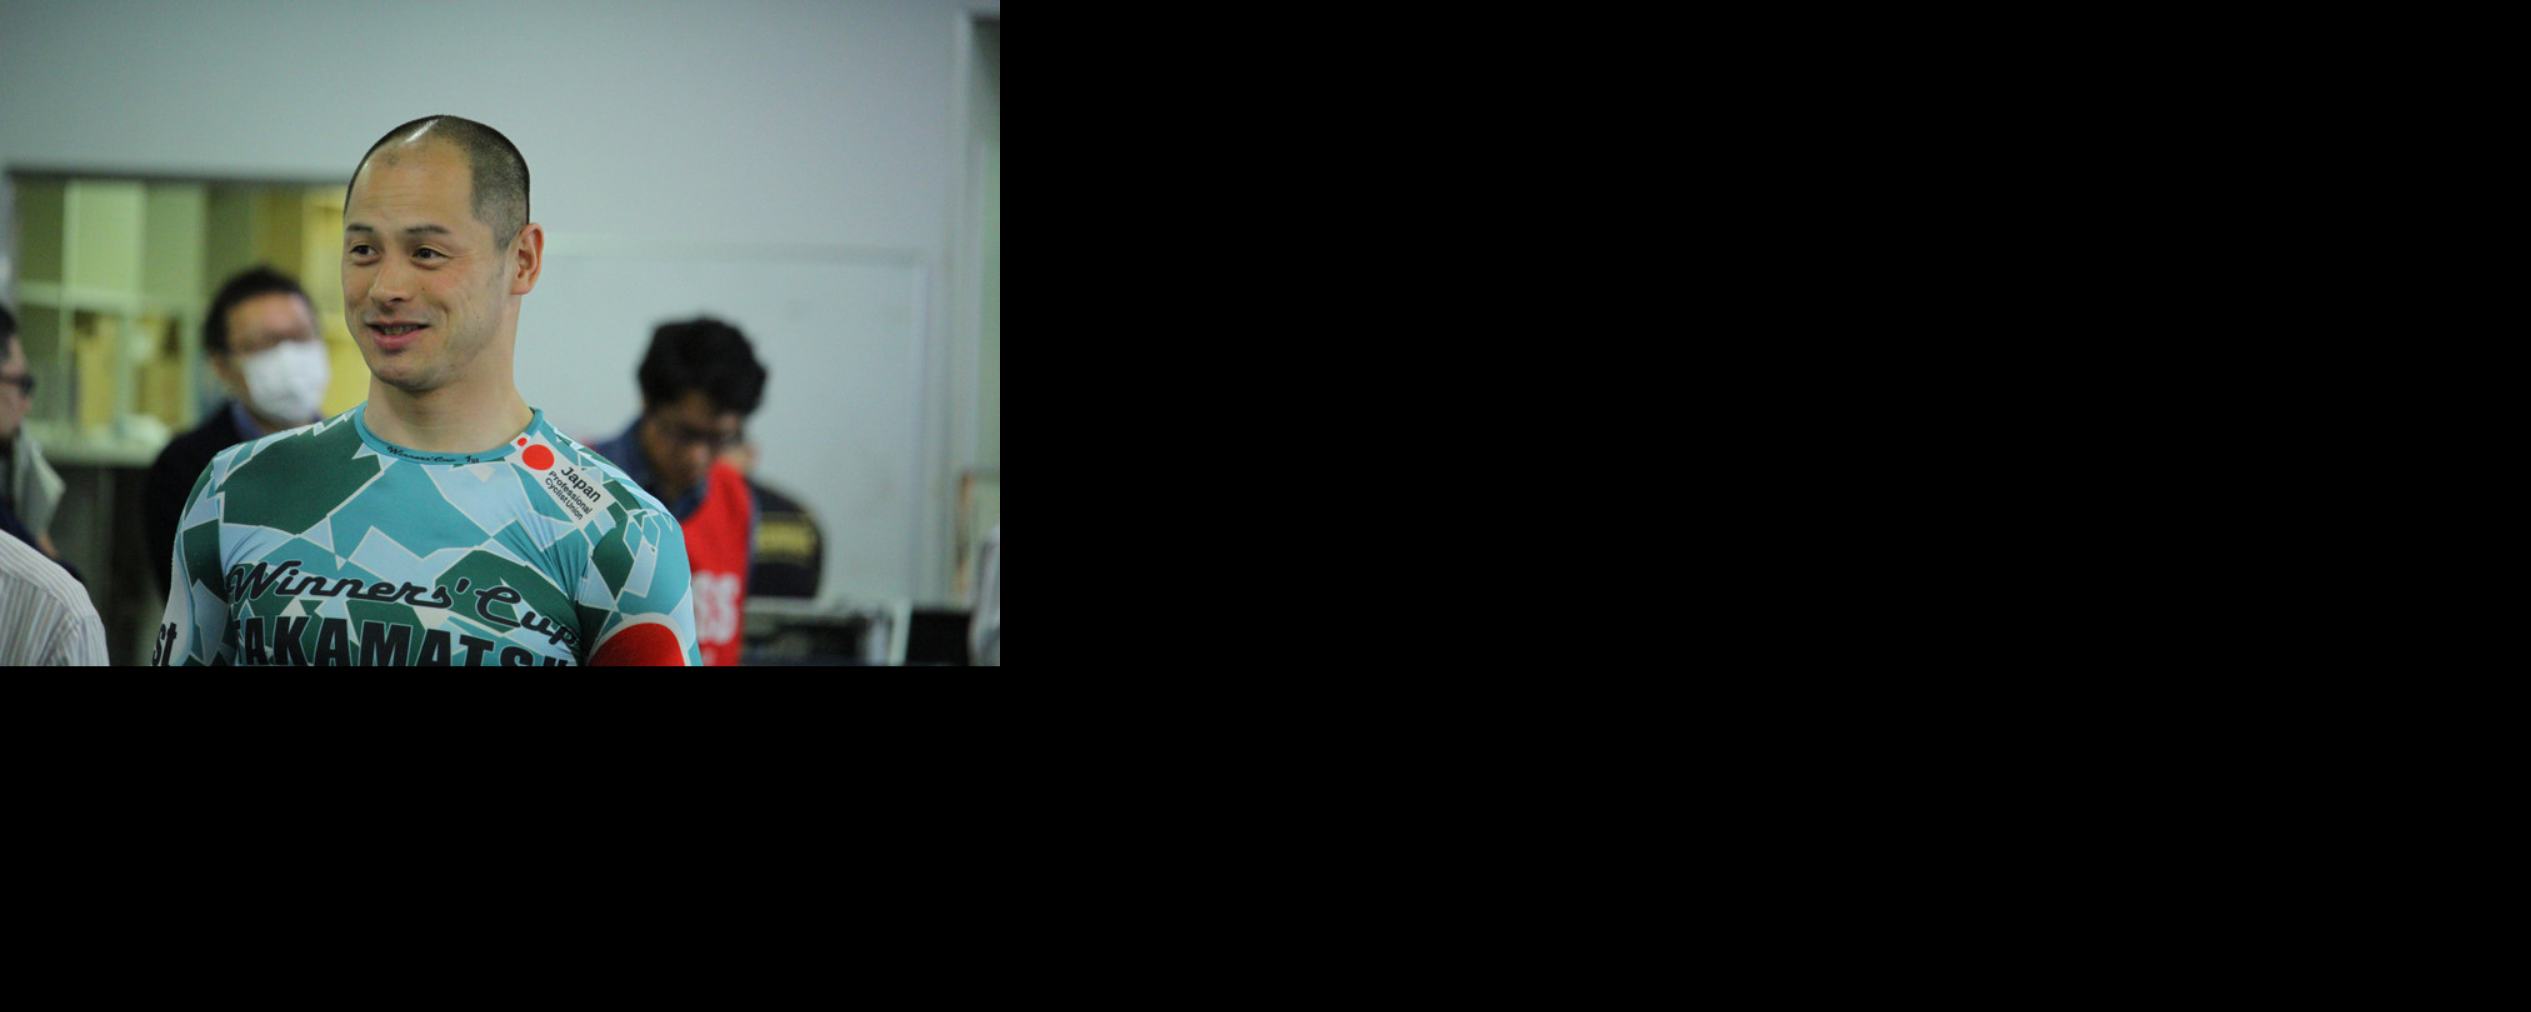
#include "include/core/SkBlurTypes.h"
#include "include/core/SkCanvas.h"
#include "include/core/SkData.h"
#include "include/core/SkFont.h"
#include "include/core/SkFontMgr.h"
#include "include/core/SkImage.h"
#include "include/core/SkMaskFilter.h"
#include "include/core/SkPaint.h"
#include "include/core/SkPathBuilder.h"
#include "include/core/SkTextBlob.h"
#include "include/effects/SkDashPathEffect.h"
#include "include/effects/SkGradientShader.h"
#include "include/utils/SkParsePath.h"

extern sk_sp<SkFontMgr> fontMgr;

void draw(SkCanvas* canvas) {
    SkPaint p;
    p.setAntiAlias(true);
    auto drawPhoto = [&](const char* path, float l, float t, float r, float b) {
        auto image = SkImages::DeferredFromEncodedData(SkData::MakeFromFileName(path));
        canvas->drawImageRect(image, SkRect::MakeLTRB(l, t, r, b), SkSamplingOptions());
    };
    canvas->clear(0xFF000000);
    drawPhoto("media/1.png", 0, 0, 1000, 667);
}
